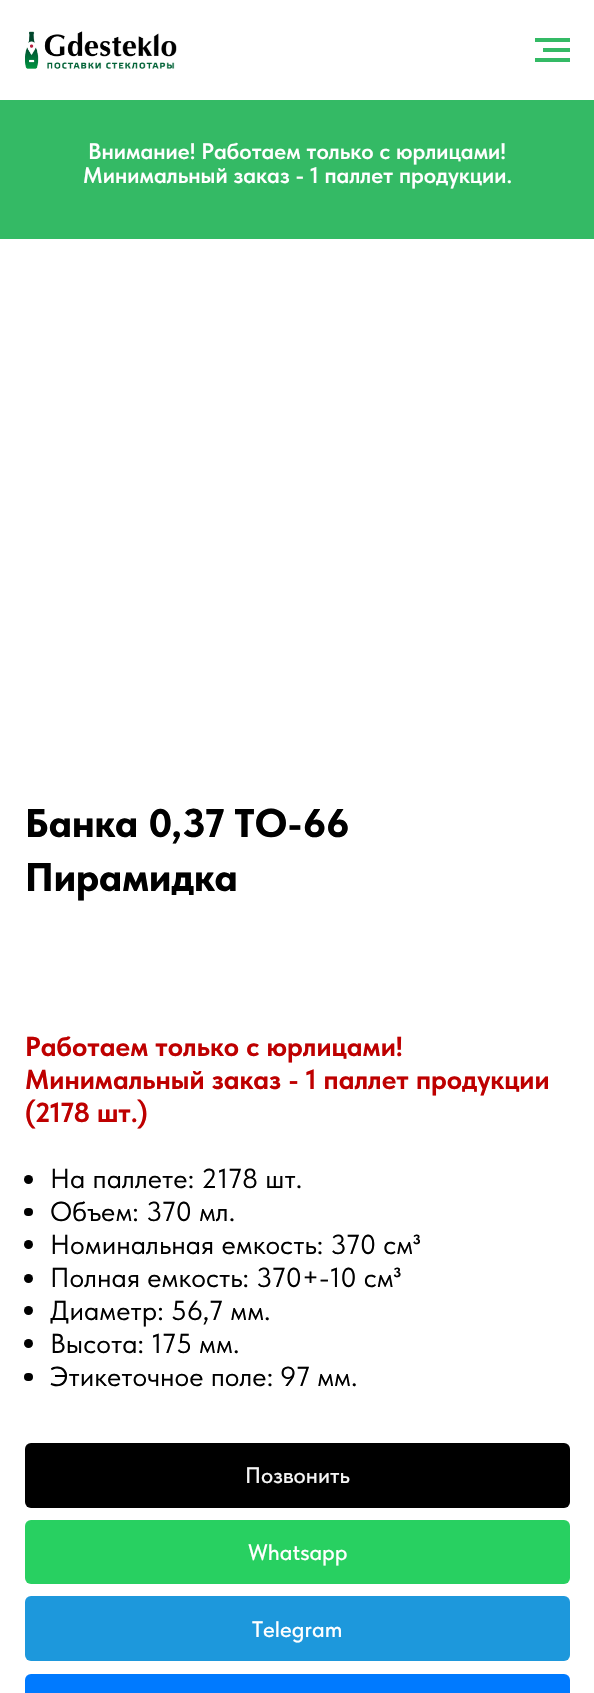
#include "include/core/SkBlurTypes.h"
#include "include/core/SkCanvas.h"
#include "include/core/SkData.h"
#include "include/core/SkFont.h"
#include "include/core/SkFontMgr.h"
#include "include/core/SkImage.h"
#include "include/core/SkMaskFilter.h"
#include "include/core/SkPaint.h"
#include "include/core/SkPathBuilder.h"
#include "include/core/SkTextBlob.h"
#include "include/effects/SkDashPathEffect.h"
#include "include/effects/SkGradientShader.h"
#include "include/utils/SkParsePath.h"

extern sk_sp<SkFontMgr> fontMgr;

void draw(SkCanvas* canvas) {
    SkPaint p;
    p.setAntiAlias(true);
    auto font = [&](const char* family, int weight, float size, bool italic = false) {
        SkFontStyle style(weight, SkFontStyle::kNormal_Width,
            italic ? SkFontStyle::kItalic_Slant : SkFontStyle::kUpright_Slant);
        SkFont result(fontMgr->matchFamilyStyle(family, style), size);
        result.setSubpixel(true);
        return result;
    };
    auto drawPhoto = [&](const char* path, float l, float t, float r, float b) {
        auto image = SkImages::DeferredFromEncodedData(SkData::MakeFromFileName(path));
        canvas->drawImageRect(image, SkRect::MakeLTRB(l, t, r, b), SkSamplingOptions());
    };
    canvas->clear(0xFFFFFFFF);
    drawPhoto("media/1.png", 25, 31, 177, 69);
    {
        const struct { float l, t, r, b; SkColor color; } items[] = {
            {535, 38, 570, 42, 0xFF34BA65},
            {543, 48, 570, 52, 0xFF34BA65},
            {535, 58, 570, 62, 0xFF34BA65},
            {0, 100, 594, 239, 0xFF34BA65},
        };
        for (auto [l, t, r, b, color] : items) {
            p.setColor(color);
            canvas->drawRect(SkRect::MakeLTRB(l, t, r, b), p);
        }
    }
    auto font1 = font("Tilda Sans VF", 600, 22.5f);
    p.setColor(0xFFFFFFFF);
    canvas->drawString("Внимание! Работаем только с юрлицами!", 88, 159, font1, p);
    canvas->drawString("Минимальный заказ - 1 паллет продукции.", 83, 183, font1, p);
    auto font2 = font("Tilda Sans VF", 800, 40);
    p.setColor(0xFF000000);
    canvas->drawString("Банка 0,37 ТО-66", 25, 837, font2, p);
    canvas->drawString("Пирамидка", 25, 891, font2, p);
    auto font3 = font("Tilda Sans VF", 700, 27.5f);
    p.setColor(0xFFBE0000);
    {
        const struct { const char* s; float x, y; } items[] = {
            {"Работаем только с юрлицами!", 25, 1056},
            {"Минимальный заказ - 1 паллет продукции", 25, 1089},
            {"(2178 шт.)", 25, 1122},
        };
        for (auto [s, x, y] : items) {
            canvas->drawString(s, x, y, font3, p);
        }
    }
    p.setColor(0xFF000000);
    canvas->drawCircle(28.5f, 1179.5f, 4.5f, p);
    auto font4 = font("Tilda Sans VF", 400, 27.5f);
    canvas->drawString("На паллете: 2178 шт.", 50, 1188, font4, p);
    canvas->drawRoundRect(SkRect::MakeLTRB(24, 1208, 33, 1216), 4, 4, p);
    canvas->drawString("Объем: 370 мл.", 50, 1221, font4, p);
    canvas->drawCircle(28.5f, 1244.5f, 4.5f, p);
    canvas->drawString("Номинальная емкость: 370 см³", 50, 1254, font4, p);
    canvas->drawCircle(28.5f, 1278.5f, 4.5f, p);
    canvas->drawString("Полная емкость: 370+-10 см³", 50, 1287, font4, p);
    canvas->drawCircle(28.5f, 1310.5f, 4.5f, p);
    canvas->drawString("Диаметр: 56,7 мм.", 50, 1320, font4, p);
    canvas->drawCircle(28.5f, 1343.5f, 4.5f, p);
    canvas->drawString("Высота: 175 мм.", 50, 1353, font4, p);
    canvas->drawRoundRect(SkRect::MakeLTRB(24, 1373, 33, 1381), 4, 4, p);
    canvas->drawString("Этикеточное поле: 97 мм.", 50, 1386, font4, p);
    canvas->drawRoundRect(SkRect::MakeLTRB(25, 1443, 570, 1508), 6, 6, p);
    auto font5 = font("Tilda Sans VF", 500, 22.5f);
    p.setColor(0xFFF6F6F6);
    canvas->drawString("Позвонить", 245, 1483, font5, p);
    p.setColor(0xFF28D061);
    canvas->drawRoundRect(SkRect::MakeLTRB(25, 1520, 570, 1584), 6, 6, p);
    p.setColor(0xFFFFFFFF);
    canvas->drawString("Whatsapp", 248, 1560, font5, p);
    p.setColor(0xFF1D98DC);
    canvas->drawRoundRect(SkRect::MakeLTRB(25, 1596, 570, 1661), 6, 6, p);
    p.setColor(0xFFFFFFFF);
    canvas->drawString("Telegram", 252, 1637, font5, p);
    p.setColor(0xFF007AFF);
    canvas->drawRoundRect(SkRect::MakeLTRB(25, 1674, 570, 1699), 6, 6, p);
}
